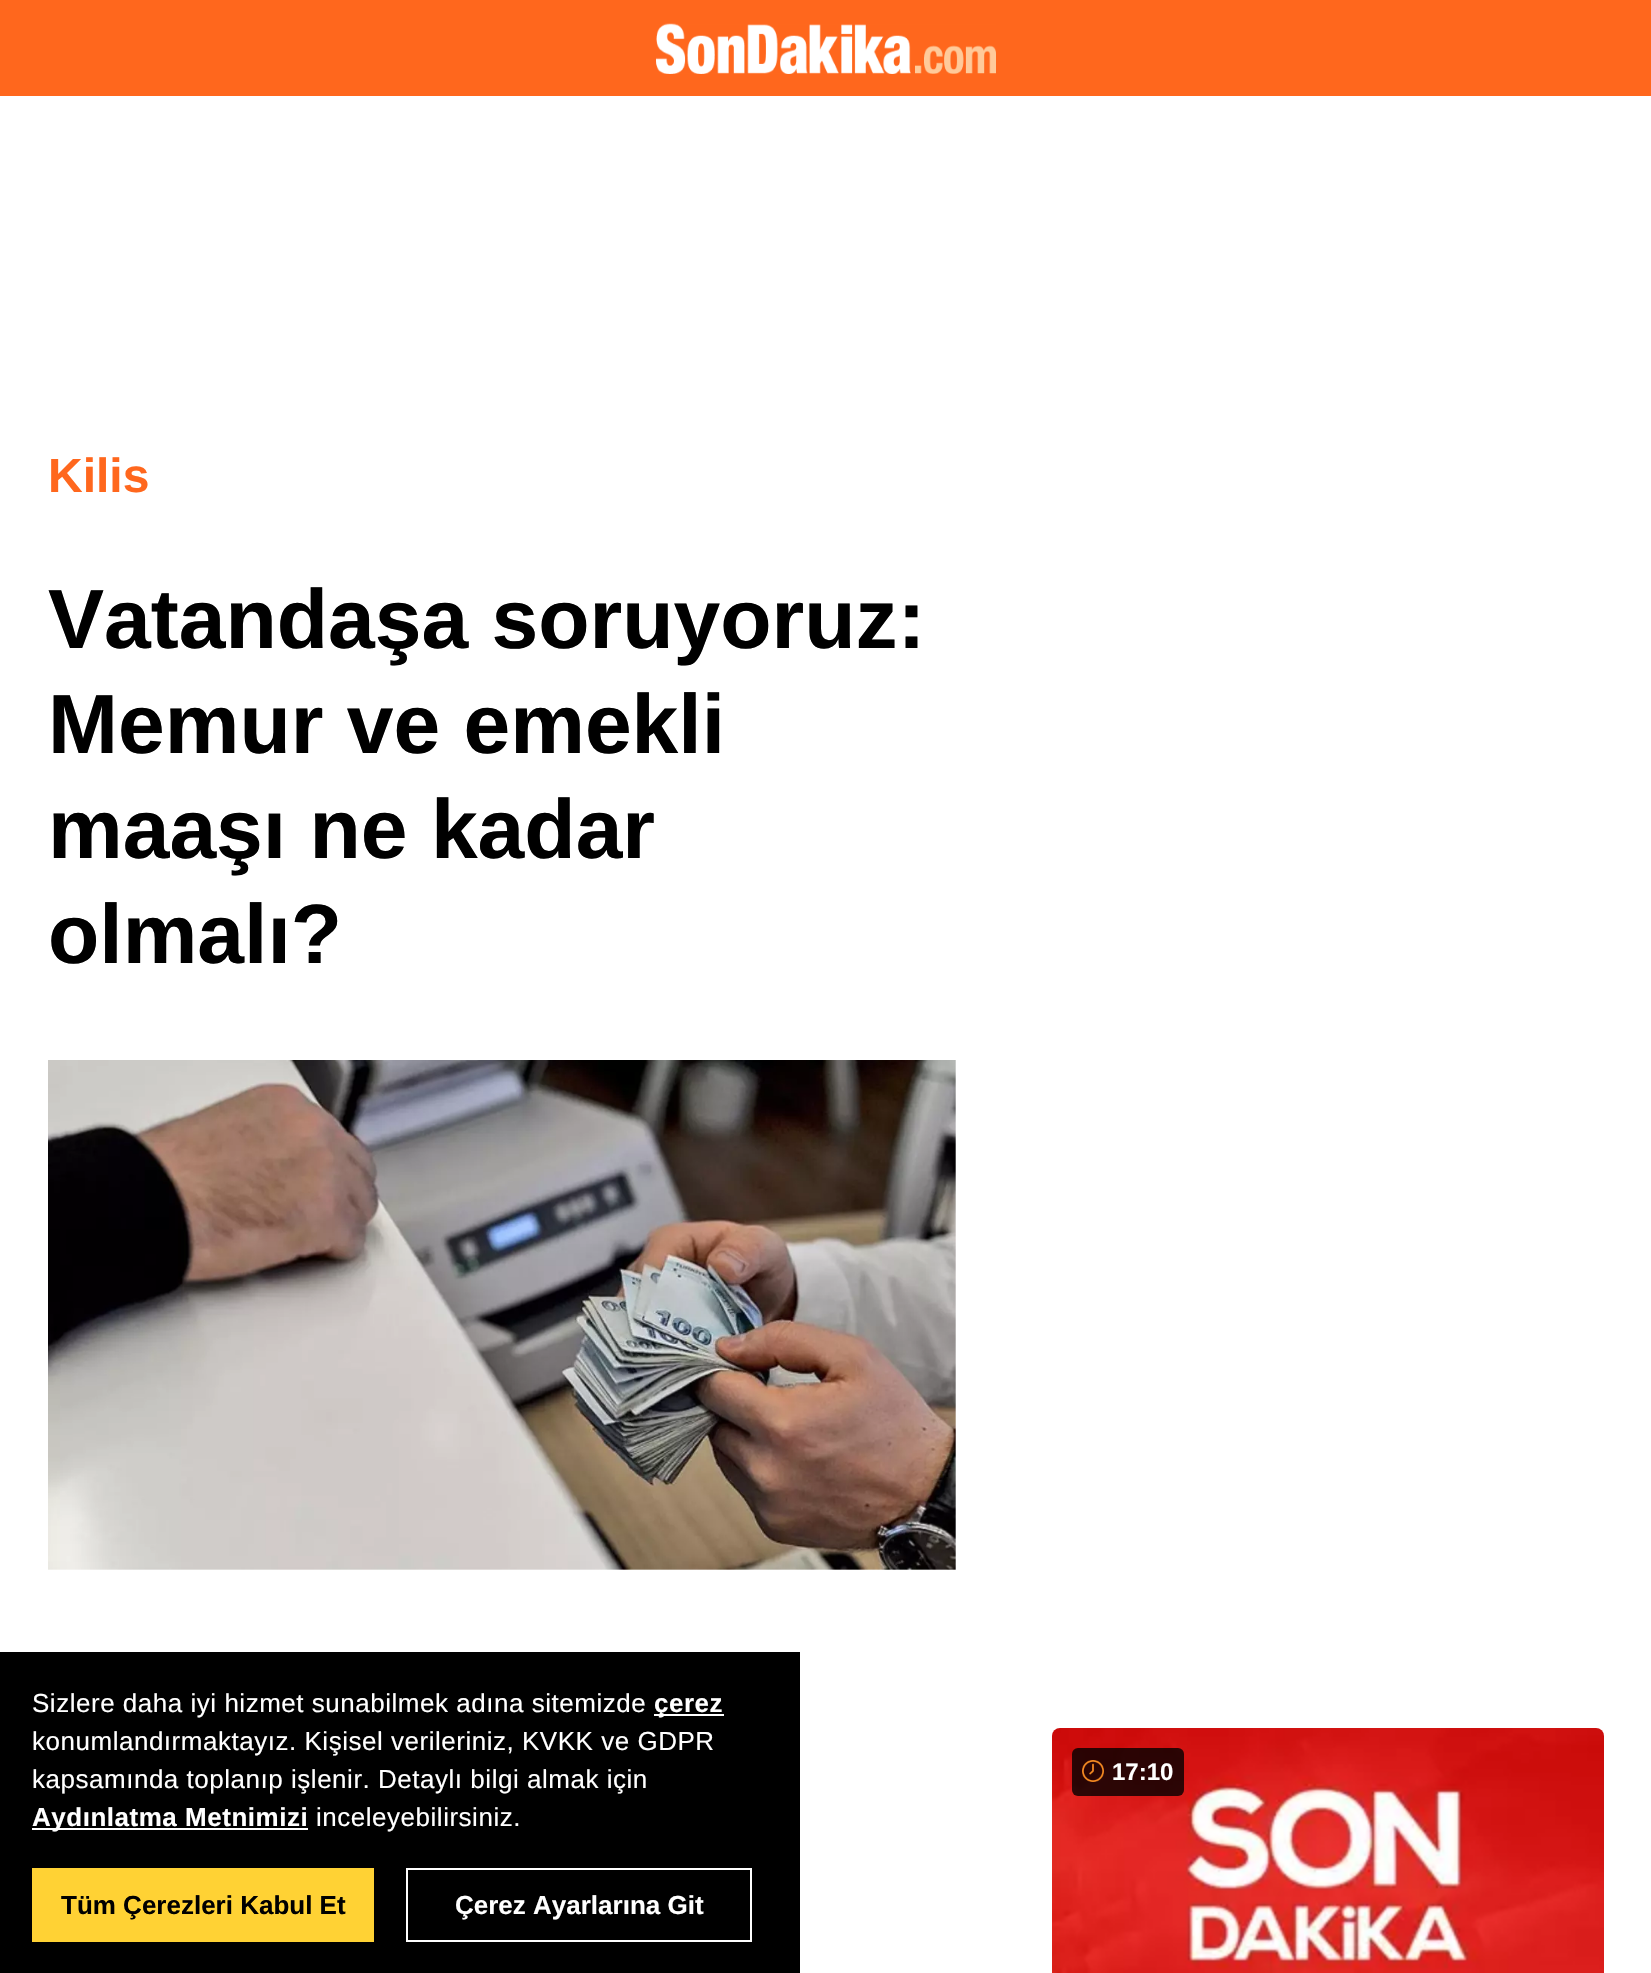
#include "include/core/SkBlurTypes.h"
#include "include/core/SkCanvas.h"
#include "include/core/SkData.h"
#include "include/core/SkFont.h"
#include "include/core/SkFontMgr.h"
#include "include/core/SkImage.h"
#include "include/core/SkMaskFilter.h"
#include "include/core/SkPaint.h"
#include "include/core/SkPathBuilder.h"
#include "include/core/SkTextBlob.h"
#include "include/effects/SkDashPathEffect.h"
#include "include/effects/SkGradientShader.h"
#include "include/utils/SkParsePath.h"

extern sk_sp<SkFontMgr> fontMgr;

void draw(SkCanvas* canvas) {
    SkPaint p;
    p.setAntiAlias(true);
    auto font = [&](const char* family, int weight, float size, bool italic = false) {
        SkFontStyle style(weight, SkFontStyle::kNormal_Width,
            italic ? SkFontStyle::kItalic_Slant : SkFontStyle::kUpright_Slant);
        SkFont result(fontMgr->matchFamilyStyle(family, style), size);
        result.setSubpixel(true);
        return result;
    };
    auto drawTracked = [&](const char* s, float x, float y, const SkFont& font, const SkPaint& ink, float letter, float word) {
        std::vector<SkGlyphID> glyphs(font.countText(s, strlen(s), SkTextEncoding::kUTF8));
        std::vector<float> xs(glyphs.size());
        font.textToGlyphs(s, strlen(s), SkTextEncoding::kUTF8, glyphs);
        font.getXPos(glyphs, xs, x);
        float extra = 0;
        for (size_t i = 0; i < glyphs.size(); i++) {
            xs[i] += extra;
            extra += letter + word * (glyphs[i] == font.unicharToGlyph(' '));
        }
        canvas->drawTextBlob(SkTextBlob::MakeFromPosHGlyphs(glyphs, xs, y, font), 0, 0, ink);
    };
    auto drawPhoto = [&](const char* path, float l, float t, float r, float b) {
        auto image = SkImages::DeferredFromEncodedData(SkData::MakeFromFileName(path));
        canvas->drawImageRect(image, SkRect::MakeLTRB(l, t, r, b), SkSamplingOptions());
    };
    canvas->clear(0xFFFFFFFF);
    p.setColor(0xFFFF671D);
    canvas->drawRect(SkRect::MakeLTRB(0, 0, 1651, 96), p);
    drawPhoto("media/1.png", 656, 23, 996, 74);
    auto font1 = font("Liberation Sans", 700, 48);
    canvas->drawString("Kilis", 48, 492, font1, p);
    auto font2 = font("Liberation Sans", 700, 84);
    p.setColor(0xFF000000);
    {
        const struct { const char* s; float x, y; } items[] = {
            {"Vatandaşa soruyoruz:", 48, 648},
            {"Memur ve emekli", 48, 753},
            {"maaşı ne kadar", 48, 858},
            {"olmalı?", 48, 963},
        };
        for (auto [s, x, y] : items) {
            canvas->drawString(s, x, y, font2, p);
        }
    }
    drawPhoto("media/2.png", 48, 1060, 956, 1570);
    drawPhoto("media/3.png", 1052, 1728, 1604, 1973);
    p.setColor(0xCC000000);
    canvas->drawRoundRect(SkRect::MakeLTRB(1072, 1748, 1184, 1796), 6, 6, p);
    drawPhoto("media/4.png", 1082, 1760, 1104, 1782);
    auto font3 = font("Liberation Sans", 700, 24);
    p.setColor(0xFFFFFFFF);
    canvas->drawString("17:10", 1112, 1780, font3, p);
    p.setColor(0xFF000000);
    canvas->drawRect(SkRect::MakeLTRB(0, 1652, 800, 1973), p);
    auto font4 = font("Liberation Sans", 400, 26);
    p.setColor(0xFFFFFFFF);
    drawTracked("Sizlere daha iyi hizmet sunabilmek adına sitemizde", 32, 1712, font4, p, 0.52f, 0);
    canvas->drawRect(SkRect::MakeLTRB(654, 1714, 724, 1716), p);
    auto font5 = font("Liberation Sans", 700, 26);
    drawTracked("çerez", 654, 1712, font5, p, 0.52f, 0);
    drawTracked("konumlandırmaktayız. Kişisel verileriniz, KVKK ve GDPR", 32, 1750, font4, p, 0.52f, 0);
    drawTracked("kapsamında toplanıp işlenir. Detaylı bilgi almak için", 32, 1788, font4, p, 0.52f, 0);
    canvas->drawRect(SkRect::MakeLTRB(32, 1828, 308, 1830), p);
    drawTracked("Aydınlatma Metnimizi", 32, 1826, font5, p, 0.52f, 0);
    drawTracked("inceleyebilirsiniz.", 316, 1826, font4, p, 0.52f, 0);
    p.setColor(0xFFFFD234);
    canvas->drawRect(SkRect::MakeLTRB(32, 1868, 374, 1942), p);
    p.setColor(0xFF000000);
    canvas->drawString("Tüm Çerezleri Kabul Et", 61, 1914, font5, p);
    p.setStyle(SkPaint::kStroke_Style);
    p.setStrokeWidth(2);
    p.setColor(0xFFFFFFFF);
    canvas->drawRect(SkRect::MakeLTRB(407, 1869, 751, 1941), p);
    p.setStyle(SkPaint::kFill_Style);
    canvas->drawString("Çerez Ayarlarına Git", 455, 1914, font5, p);
}
